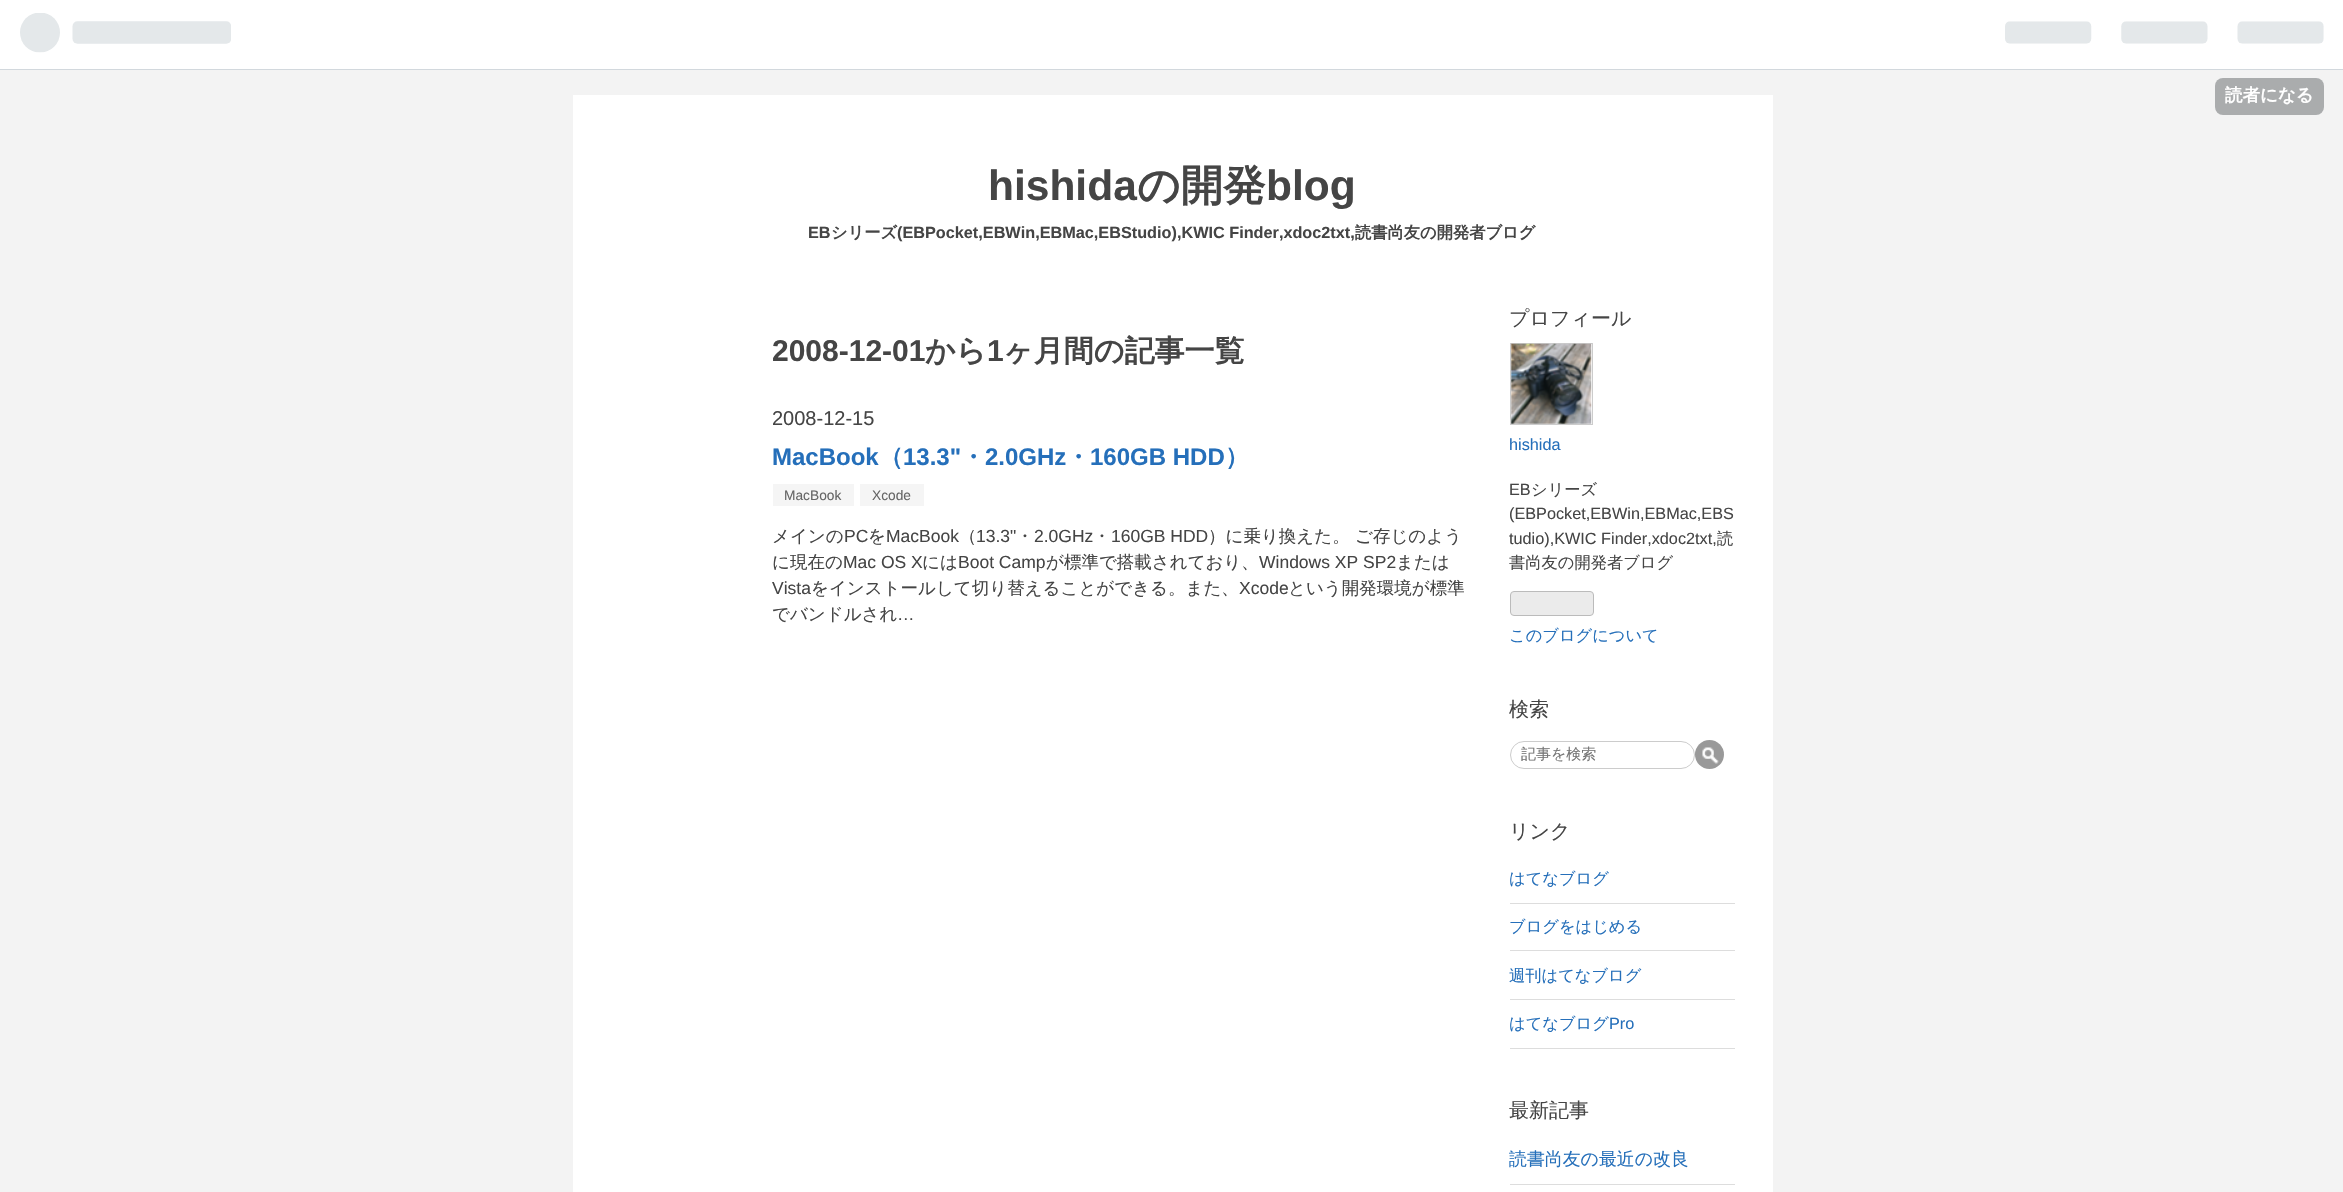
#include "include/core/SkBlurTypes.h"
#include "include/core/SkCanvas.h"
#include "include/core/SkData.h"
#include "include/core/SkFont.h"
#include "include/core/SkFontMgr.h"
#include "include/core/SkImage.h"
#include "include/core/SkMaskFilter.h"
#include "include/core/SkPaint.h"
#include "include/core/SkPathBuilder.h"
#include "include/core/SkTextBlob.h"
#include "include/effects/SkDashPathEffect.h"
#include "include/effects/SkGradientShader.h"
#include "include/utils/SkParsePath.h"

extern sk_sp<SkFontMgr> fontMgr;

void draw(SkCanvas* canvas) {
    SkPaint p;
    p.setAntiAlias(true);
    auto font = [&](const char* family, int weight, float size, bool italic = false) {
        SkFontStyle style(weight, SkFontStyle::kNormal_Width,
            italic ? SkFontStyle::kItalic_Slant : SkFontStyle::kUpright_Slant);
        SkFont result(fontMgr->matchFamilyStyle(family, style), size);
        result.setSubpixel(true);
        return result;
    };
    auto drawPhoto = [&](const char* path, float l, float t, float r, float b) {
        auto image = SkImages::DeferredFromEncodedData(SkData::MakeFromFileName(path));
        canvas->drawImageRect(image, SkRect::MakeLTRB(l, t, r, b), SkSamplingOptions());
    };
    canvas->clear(0xFFF3F3F3);
    p.setColor(0xFFFFFFFF);
    canvas->drawRect(SkRect::MakeLTRB(0, 0, 2343, 69), p);
    p.setColor(0xFFD2D8DD);
    canvas->drawRect(SkRect::MakeLTRB(0, 69, 2343, 70), p);
    drawPhoto("media/1.png", 20, 13, 231, 53);
    drawPhoto("media/2.png", 2005, 21, 2324, 44);
    p.setColor(0xFFAAACAD);
    canvas->drawRoundRect(SkRect::MakeLTRB(2215, 78, 2324, 115), 8, 8, p);
    auto font1 = font("WenQuanYi Zen Hei", 700, 17.5f);
    p.setColor(0xFFFFFFFF);
    canvas->drawString("読者になる", 2225, 101, font1, p);
    canvas->drawRect(SkRect::MakeLTRB(573, 95, 1773, 1192), p);
    auto font2 = font("Liberation Sans", 700, 42.5f);
    p.setColor(0xFF454545);
    canvas->drawString("hishida", 988, 200, font2, p);
    auto font3 = font("WenQuanYi Zen Hei", 700, 42.5f);
    canvas->drawString("の開発", 1137, 200, font3, p);
    canvas->drawString("blog", 1266, 200, font2, p);
    auto font4 = font("Liberation Sans", 700, 16.25f);
    canvas->drawString("EB", 808, 238, font4, p);
    auto font5 = font("WenQuanYi Zen Hei", 700, 16.25f);
    canvas->drawString("シリーズ", 831, 238, font5, p);
    canvas->drawString("(EBPocket,EBWin,EBMac,EBStudio),KWIC Finder,xdoc2txt,", 897, 238, font4, p);
    canvas->drawString("読書尚友の開発者ブログ", 1355, 238, font5, p);
    auto font6 = font("Liberation Sans", 700, 30);
    canvas->drawString("2008-12-01", 772, 361, font6, p);
    auto font7 = font("WenQuanYi Zen Hei", 700, 30);
    canvas->drawString("から", 925, 361, font7, p);
    canvas->drawString("1", 987, 361, font6, p);
    canvas->drawString("ヶ月間の記事一覧", 1003, 361, font7, p);
    auto font8 = font("Liberation Sans", 400, 20);
    canvas->drawString("2008-12-15", 772, 425, font8, p);
    auto font9 = font("Liberation Sans", 700, 24);
    p.setColor(0xFF256FBA);
    canvas->drawString("MacBook", 772, 465, font9, p);
    auto font10 = font("WenQuanYi Zen Hei", 700, 24);
    canvas->drawString("（", 879, 465, font10, p);
    canvas->drawString("13.3\"", 903, 465, font9, p);
    canvas->drawString("・", 961, 465, font10, p);
    canvas->drawString("2.0GHz", 985, 465, font9, p);
    canvas->drawString("・", 1066, 465, font10, p);
    canvas->drawString("160GB HDD", 1090, 465, font9, p);
    canvas->drawString("）", 1225, 465, font10, p);
    p.setColor(0xFFF5F5F5);
    canvas->drawRect(SkRect::MakeLTRB(773, 484, 854, 506), p);
    auto font11 = font("Liberation Sans", 400, 13.75f);
    p.setColor(0xFF666666);
    canvas->drawString("MacBook", 784, 500, font11, p);
    p.setColor(0xFFF5F5F5);
    canvas->drawRect(SkRect::MakeLTRB(860, 484, 924, 506), p);
    p.setColor(0xFF666666);
    canvas->drawString("Xcode", 872, 500, font11, p);
    auto font12 = font("WenQuanYi Zen Hei", 500, 17.5f);
    p.setColor(0xFF454545);
    canvas->drawString("メインの", 772, 542, font12, p);
    auto font13 = font("Liberation Sans", 400, 17.5f);
    canvas->drawString("PC", 844, 542, font13, p);
    canvas->drawString("を", 868, 542, font12, p);
    canvas->drawString("MacBook", 886, 542, font13, p);
    canvas->drawString("（", 959, 542, font12, p);
    canvas->drawString("13.3\"", 976, 542, font13, p);
    canvas->drawString("・", 1016, 542, font12, p);
    canvas->drawString("2.0GHz", 1034, 542, font13, p);
    canvas->drawString("・", 1093, 542, font12, p);
    canvas->drawString("160GB HDD", 1111, 542, font13, p);
    {
        const struct { const char* s; float x, y; } items[] = {
            {"）に乗り換えた。", 1208, 542},
            {"ご存じのよう", 1355, 542},
            {"に現在の", 772, 568},
        };
        for (auto [s, x, y] : items) {
            canvas->drawString(s, x, y, font12, p);
        }
    }
    canvas->drawString("Mac OS X", 843, 568, font13, p);
    canvas->drawString("には", 922, 568, font12, p);
    canvas->drawString("Boot Camp", 958, 568, font13, p);
    canvas->drawString("が標準で搭載されており、", 1046, 568, font12, p);
    canvas->drawString("Windows XP SP2", 1259, 568, font13, p);
    canvas->drawString("または", 1396, 568, font12, p);
    canvas->drawString("Vista", 772, 594, font13, p);
    canvas->drawString("をインストールして切り替えることができる。また、", 811, 594, font12, p);
    canvas->drawString("Xcode", 1239, 594, font13, p);
    canvas->drawString("という開発環境が標準", 1288, 594, font12, p);
    canvas->drawString("でバンドルされ", 772, 620, font12, p);
    canvas->drawString("…", 897, 620, font13, p);
    auto font14 = font("WenQuanYi Zen Hei", 500, 20);
    canvas->drawString("プロフィール", 1509, 325, font14, p);
    p.setStyle(SkPaint::kStroke_Style);
    p.setStrokeWidth(1);
    p.setColor(0xFFCCCCCC);
    canvas->drawRect(SkRect::MakeLTRB(1510.5f, 343.5f, 1592.5f, 424.5f), p);
    drawPhoto("media/3.png", 1511, 343, 1592, 424);
    auto font15 = font("Liberation Sans", 400, 16.25f);
    p.setStyle(SkPaint::kFill_Style);
    p.setColor(0xFF256FBA);
    canvas->drawString("hishida", 1509, 450, font15, p);
    p.setColor(0xFF454545);
    canvas->drawString("EB", 1509, 495, font15, p);
    auto font16 = font("WenQuanYi Zen Hei", 500, 16.25f);
    canvas->drawString("シリーズ", 1531, 495, font16, p);
    canvas->drawString("(EBPocket,EBWin,EBMac,EBS", 1509, 519, font15, p);
    canvas->drawString("tudio),KWIC Finder,xdoc2txt,", 1509, 544, font15, p);
    canvas->drawString("読", 1717, 544, font16, p);
    canvas->drawString("書尚友の開発者ブログ", 1509, 568, font16, p);
    p.setColor(0xFFEBEBEB);
    canvas->drawRoundRect(SkRect::MakeLTRB(1510.5f, 591.5f, 1593.5f, 615.5f), 3.5f, 3.5f, p);
    p.setStyle(SkPaint::kStroke_Style);
    p.setColor(0xFFBBBBBB);
    canvas->drawRoundRect(SkRect::MakeLTRB(1510.5f, 591.5f, 1593.5f, 615.5f), 3.5f, 3.5f, p);
    p.setStyle(SkPaint::kFill_Style);
    p.setColor(0xFF256FBA);
    canvas->drawString("このブログについて", 1509, 641, font16, p);
    p.setColor(0xFF454545);
    canvas->drawString("検索", 1509, 716, font14, p);
    p.setStyle(SkPaint::kStroke_Style);
    p.setColor(0xFFCCCCCC);
    canvas->drawRoundRect(SkRect::MakeLTRB(1510.5f, 741.5f, 1694.5f, 768.5f), 13.5f, 13.5f, p);
    auto font17 = font("WenQuanYi Zen Hei", 500, 15);
    p.setStyle(SkPaint::kFill_Style);
    p.setColor(0xFF757575);
    canvas->drawString("記事を検索", 1521, 759, font17, p);
    p.setColor(0xFF999999);
    canvas->drawCircle(1709.5f, 754.5f, 14.5f, p);
    drawPhoto("media/4.png", 1702, 747, 1719, 764);
    p.setColor(0xFF454545);
    canvas->drawString("リンク", 1509, 838, font14, p);
    p.setColor(0xFFDDDDDD);
    canvas->drawRect(SkRect::MakeLTRB(1510, 903, 1735, 904), p);
    p.setColor(0xFF256FBA);
    canvas->drawString("はてなブログ", 1509, 884, font16, p);
    p.setColor(0xFFDDDDDD);
    canvas->drawRect(SkRect::MakeLTRB(1510, 950, 1735, 951), p);
    p.setColor(0xFF256FBA);
    canvas->drawString("ブログをはじめる", 1509, 932, font16, p);
    p.setColor(0xFFDDDDDD);
    canvas->drawRect(SkRect::MakeLTRB(1510, 999, 1735, 1000), p);
    p.setColor(0xFF256FBA);
    canvas->drawString("週刊はてなブログ", 1509, 981, font16, p);
    p.setColor(0xFFDDDDDD);
    canvas->drawRect(SkRect::MakeLTRB(1510, 1048, 1735, 1049), p);
    p.setColor(0xFF256FBA);
    canvas->drawString("はてなブログ", 1509, 1029, font16, p);
    canvas->drawString("Pro", 1609, 1029, font15, p);
    p.setColor(0xFF454545);
    canvas->drawString("最新記事", 1509, 1117, font14, p);
    p.setColor(0xFFDDDDDD);
    canvas->drawRect(SkRect::MakeLTRB(1510, 1184, 1735, 1185), p);
    auto font18 = font("WenQuanYi Zen Hei", 500, 17.9f);
    p.setColor(0xFF256FBA);
    canvas->drawString("読書尚友の最近の改良", 1509, 1165, font18, p);
}
